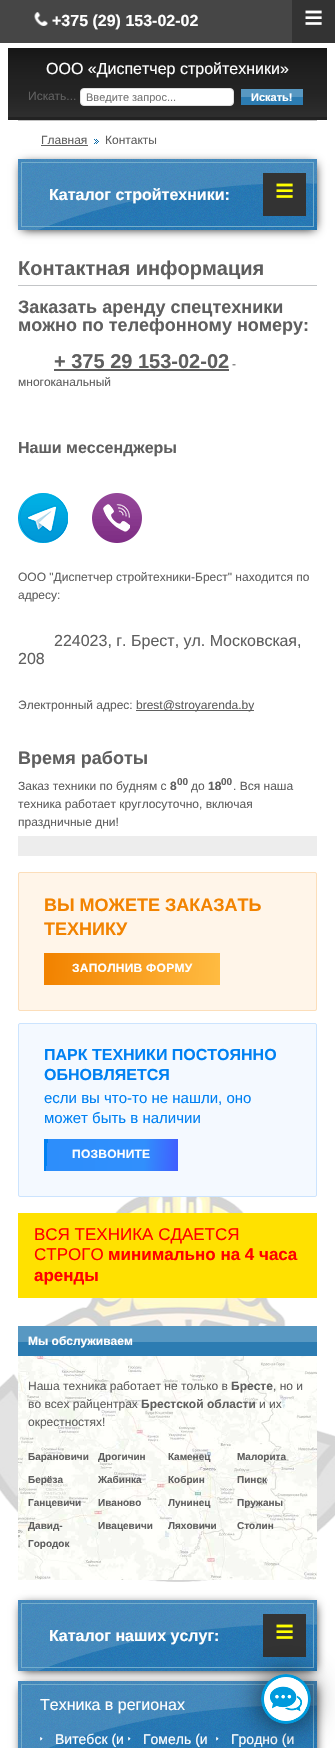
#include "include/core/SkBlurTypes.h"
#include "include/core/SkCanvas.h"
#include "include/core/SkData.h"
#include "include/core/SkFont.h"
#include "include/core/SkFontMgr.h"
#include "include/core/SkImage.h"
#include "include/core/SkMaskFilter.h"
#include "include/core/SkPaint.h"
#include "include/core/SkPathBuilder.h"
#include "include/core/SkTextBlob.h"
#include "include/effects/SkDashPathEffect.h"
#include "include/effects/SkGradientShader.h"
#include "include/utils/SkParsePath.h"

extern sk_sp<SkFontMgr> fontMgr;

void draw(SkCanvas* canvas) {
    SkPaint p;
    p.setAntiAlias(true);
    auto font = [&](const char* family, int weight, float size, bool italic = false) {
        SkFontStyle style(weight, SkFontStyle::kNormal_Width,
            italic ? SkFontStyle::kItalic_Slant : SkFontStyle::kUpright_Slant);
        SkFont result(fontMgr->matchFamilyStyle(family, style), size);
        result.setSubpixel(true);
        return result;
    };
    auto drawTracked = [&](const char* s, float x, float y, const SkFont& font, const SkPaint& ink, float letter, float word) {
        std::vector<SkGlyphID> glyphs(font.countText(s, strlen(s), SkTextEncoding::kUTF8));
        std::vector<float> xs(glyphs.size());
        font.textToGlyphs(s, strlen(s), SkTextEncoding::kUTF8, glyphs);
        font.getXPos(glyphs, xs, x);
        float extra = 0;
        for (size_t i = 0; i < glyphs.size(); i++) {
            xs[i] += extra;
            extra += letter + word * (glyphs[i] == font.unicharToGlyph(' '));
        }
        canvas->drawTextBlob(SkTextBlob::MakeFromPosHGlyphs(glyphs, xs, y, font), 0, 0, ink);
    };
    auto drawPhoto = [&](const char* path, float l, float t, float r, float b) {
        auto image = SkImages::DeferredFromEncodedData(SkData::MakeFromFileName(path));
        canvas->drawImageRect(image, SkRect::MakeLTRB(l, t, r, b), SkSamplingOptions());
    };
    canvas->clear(0xFFFFFFFF);
    drawPhoto("media/1.png", 0, 1197, 335, 1582);
    p.setColor(0xFF464646);
    canvas->drawRect(SkRect::MakeLTRB(0, 0, 292, 43), p);
    drawPhoto("media/2.png", 34, 12, 48, 26);
    auto font1 = font("Liberation Sans", 700, 16);
    p.setColor(0xFFFFFFFF);
    canvas->drawString("+375 (29) 153-02-02", 52, 26, font1, p);
    p.setColor(0xFF333333);
    canvas->drawRect(SkRect::MakeLTRB(292, 0, 335, 43), p);
    auto font2 = font("Liberation Serif", 700, 34);
    p.setColor(0xFFFFFFFF);
    canvas->drawString("≡", 304, 29, font2, p);
    drawPhoto("media/3.png", 8, 48, 327, 117);
    auto font3 = font("Liberation Sans", 400, 16);
    canvas->drawString("ООО «Диспетчер стройтехники»", 46, 74, font3, p);
    auto font4 = font("Liberation Sans", 400, 12);
    p.setColor(0xFF5F5F5F);
    canvas->drawString("Искать...", 28, 100, font4, p);
    p.setColor(0xFFFFFFFF);
    canvas->drawRoundRect(SkRect::MakeLTRB(80.5f, 88.5f, 233.5f, 105.5f), 3.5f, 3.5f, p);
    p.setStyle(SkPaint::kStroke_Style);
    p.setStrokeWidth(1);
    p.setColor(0xFFE0E0E0);
    canvas->drawRoundRect(SkRect::MakeLTRB(80.5f, 88.5f, 233.5f, 105.5f), 3.5f, 3.5f, p);
    canvas->save();
    canvas->clipRect(SkRect::MakeLTRB(86, 91, 216, 103));
    auto font5 = font("Liberation Sans", 400, 11);
    p.setStyle(SkPaint::kFill_Style);
    p.setColor(0xFF757575);
    canvas->drawString("Введите запрос...", 86, 101, font5, p);
    canvas->restore();
    drawPhoto("media/4.png", 241, 89, 303, 105);
    auto font6 = font("Liberation Sans", 700, 11);
    p.setColor(0xFFFFFFFF);
    canvas->drawString("Искать!", 251, 101, font6, p);
    p.setColor(0xFF222222);
    canvas->drawRect(SkRect::MakeLTRB(8, 117, 327, 120), p);
    p.setColor(0xFFC2C2C2);
    canvas->drawRect(SkRect::MakeLTRB(18, 120, 317, 121), p);
    p.setColor(0xFF5F5F5F);
    canvas->drawString("Главная", 41, 144, font4, p);
    canvas->drawRect(SkRect::MakeLTRB(41, 145, 88, 146), p);
    drawPhoto("media/5.png", 94, 139, 99, 144);
    canvas->drawString("Контакты", 105, 144, font4, p);
    p.setColor(0xFF000000);
    p.setMaskFilter(SkMaskFilter::MakeBlur(kNormal_SkBlurStyle, 5));
    canvas->drawRect(SkRect::MakeLTRB(22, 164, 315, 229), p);
    p.setMaskFilter(nullptr);
    drawPhoto("media/6.png", 18, 159, 317, 230);
    drawPhoto("media/7.png", 18, 159, 317, 230);
    p.setStyle(SkPaint::kStroke_Style);
    p.setColor(0xFF74ADCC);
    canvas->drawRect(SkRect::MakeLTRB(21.5f, 162.5f, 313.5f, 226.5f), p);
    p.setStyle(SkPaint::kFill_Style);
    p.setColor(0xFFFFFFFF);
    canvas->drawString("Каталог стройтехники:", 49, 200, font1, p);
    p.setColor(0xFF333333);
    canvas->drawRect(SkRect::MakeLTRB(263, 173, 306, 216), p);
    p.setColor(0xFFFFFF00);
    canvas->drawString("≡", 275, 202, font2, p);
    p.setColor(0xFFC3C5C7);
    canvas->drawRect(SkRect::MakeLTRB(18, 285, 317, 286), p);
    auto font7 = font("Liberation Sans", 700, 20);
    p.setColor(0xFF5F5F5F);
    canvas->drawString("Контактная информация", 18, 275, font7, p);
    auto font8 = font("Liberation Sans", 700, 18);
    canvas->drawString("Заказать аренду спецтехники", 18, 313, font8, p);
    canvas->drawString("можно по телефонному номеру:", 18, 331, font8, p);
    canvas->drawString("+ 375 29 153-02-02", 54, 368, font7, p);
    canvas->drawRect(SkRect::MakeLTRB(54, 369, 229, 371), p);
    canvas->drawString("-", 232, 368, font4, p);
    canvas->drawString("многоканальный", 18, 386, font4, p);
    canvas->drawString("Наши мессенджеры", 18, 453, font1, p);
    drawPhoto("media/8.png", 18, 493, 68, 543);
    drawPhoto("media/9.png", 92, 493, 142, 543);
    canvas->drawString("ООО \"Диспетчер стройтехники-Брест\" находится по", 18, 581, font4, p);
    canvas->drawString("адресу:", 18, 599, font4, p);
    canvas->drawString("224023, г. Брест, ул. Московская,", 54, 646, font3, p);
    canvas->drawString("208", 18, 664, font3, p);
    canvas->drawString("Электронный адрес:", 18, 709, font4, p);
    canvas->drawRect(SkRect::MakeLTRB(136, 710, 254, 711), p);
    canvas->drawString("brest@stroyarenda.by", 136, 709, font4, p);
    canvas->drawString("Время работы", 18, 764, font8, p);
    canvas->drawString("Заказ техники по будням с", 18, 790, font4, p);
    auto font9 = font("Liberation Sans", 700, 12);
    canvas->drawString("8", 170, 790, font9, p);
    auto font10 = font("Liberation Sans", 700, 10);
    canvas->drawString("00", 177, 785, font10, p);
    canvas->drawString("до", 191, 790, font4, p);
    canvas->drawString("18", 208, 790, font9, p);
    canvas->drawString("00", 221, 785, font10, p);
    {
        const struct { const char* s; float x, y; } items[] = {
            {". Вся наша", 233, 790},
            {"техника работает круглосуточно, включая", 18, 808},
            {"праздничные дни!", 18, 826},
        };
        for (auto [s, x, y] : items) {
            canvas->drawString(s, x, y, font4, p);
        }
    }
    p.setColor(0xFFEDEDED);
    canvas->drawRect(SkRect::MakeLTRB(18, 836, 317, 856), p);
    p.setColor(0xFFFFF5E9);
    canvas->drawRoundRect(SkRect::MakeLTRB(18, 872, 317, 1011), 2, 2, p);
    p.setStyle(SkPaint::kStroke_Style);
    p.setColor(0x33F28300);
    canvas->drawRoundRect(SkRect::MakeLTRB(18.5f, 872.5f, 316.5f, 1010.5f), 1.5f, 1.5f, p);
    p.setStyle(SkPaint::kFill_Style);
    p.setColor(0xFFF28300);
    canvas->drawString("ВЫ МОЖЕТЕ ЗАКАЗАТЬ", 44, 911, font8, p);
    canvas->drawString("ТЕХНИКУ", 44, 935, font8, p);
    {
        const SkColor colors[] = {0xFFF28300, 0xFFFCAD31, 0xFFFFBC42};
        const float stops[] = {0.03f, 0.74f, 1};
        const SkPoint ends[] = {{43, 965}, {222, 973}};
        p.setShader(SkGradientShader::MakeLinear(ends, colors, stops, 3, SkTileMode::kClamp));
        p.setAlpha(255);
    }
    canvas->drawRect(SkRect::MakeLTRB(44, 953, 220, 985), p);
    p.setShader(nullptr);
    p.setColor(0xFFFFFFFF);
    drawTracked("ЗАПОЛНИВ ФОРМУ", 72, 972, font9, p, 0.25f, 0);
    p.setColor(0xFFF4F9FF);
    canvas->drawRoundRect(SkRect::MakeLTRB(18.5f, 1023.5f, 316.5f, 1196.5f), 1.5f, 1.5f, p);
    p.setStyle(SkPaint::kStroke_Style);
    p.setColor(0xFFCCE4FE);
    canvas->drawRoundRect(SkRect::MakeLTRB(18.5f, 1023.5f, 316.5f, 1196.5f), 1.5f, 1.5f, p);
    p.setStyle(SkPaint::kFill_Style);
    p.setColor(0xFF0081F2);
    canvas->drawString("ПАРК ТЕХНИКИ ПОСТОЯННО", 44, 1060, font1, p);
    canvas->drawString("ОБНОВЛЯЕТСЯ", 44, 1080, font1, p);
    auto font11 = font("Liberation Sans", 400, 15);
    canvas->drawString("если вы что-то не нашли, оно", 44, 1103, font11, p);
    canvas->drawString("может быть в наличии", 44, 1123, font11, p);
    {
        const SkColor colors[] = {0xFF0081F2, 0xFF2D8EFB, 0xFF318FFC, 0xFF425BFF};
        const float stops[] = {0.03f, 0.03f, 0.74f, 1};
        const SkPoint ends[] = {{43, 1152}, {180, 1158}};
        p.setShader(SkGradientShader::MakeLinear(ends, colors, stops, 4, SkTileMode::kClamp));
        p.setAlpha(255);
    }
    canvas->drawRect(SkRect::MakeLTRB(44, 1139, 178, 1171), p);
    p.setShader(nullptr);
    p.setColor(0xFFFFFFFF);
    drawTracked("ПОЗВОНИТЕ", 72, 1158, font9, p, 0.25f, 0);
    p.setColor(0xFFFFE100);
    canvas->drawRect(SkRect::MakeLTRB(18, 1213, 317, 1298), p);
    auto font12 = font("Liberation Sans", 400, 17);
    p.setColor(0xFFFF0000);
    canvas->drawString("ВСЯ ТЕХНИКА СДАЕТСЯ", 34, 1240, font12, p);
    canvas->drawString("СТРОГО", 34, 1260, font12, p);
    auto font13 = font("Liberation Sans", 700, 17);
    canvas->drawString("минимально на 4 часа", 108, 1260, font13, p);
    canvas->drawString("аренды", 34, 1281, font13, p);
    drawPhoto("media/10.png", 18, 1356, 317, 1580);
    p.setColor(0xFF2C7CB2);
    canvas->drawRect(SkRect::MakeLTRB(18, 1342, 317, 1356), p);
    p.setColor(0xFF5898C2);
    canvas->drawRect(SkRect::MakeLTRB(18, 1326, 317, 1342), p);
    p.setColor(0xFFFFFFFF);
    canvas->drawString("Мы обслуживаем", 28, 1345, font9, p);
    p.setColor(0xFF5F5F5F);
    canvas->drawString("Наша техника работает не только в", 28, 1390, font4, p);
    canvas->drawString("Бресте", 231, 1390, font9, p);
    canvas->drawString(", но и", 273, 1390, font4, p);
    canvas->drawString("во всех райцентрах", 28, 1408, font4, p);
    canvas->drawString("Брестской области", 141, 1408, font9, p);
    canvas->drawString("и их", 259, 1408, font4, p);
    canvas->drawString("окрестностях!", 28, 1426, font4, p);
    {
        const struct { const char* s; float x, y; } items[] = {
            {"Барановичи", 28, 1460},
            {"Берёза", 28, 1483},
            {"Ганцевичи", 28, 1506},
            {"Давид-", 28, 1529},
            {"Городок", 28, 1547},
            {"Дрогичин", 98, 1460},
            {"Жабинка", 98, 1483},
            {"Иваново", 98, 1506},
            {"Ивацевичи", 98, 1529},
            {"Каменец", 168, 1460},
            {"Кобрин", 168, 1483},
            {"Лунинец", 168, 1506},
            {"Ляховичи", 168, 1529},
            {"Малорита", 237, 1460},
            {"Пинск", 237, 1483},
            {"Пружаны", 237, 1506},
            {"Столин", 237, 1529},
        };
        for (auto [s, x, y] : items) {
            canvas->drawString(s, x, y, font10, p);
        }
    }
    p.setColor(0xFF000000);
    p.setMaskFilter(SkMaskFilter::MakeBlur(kNormal_SkBlurStyle, 5));
    canvas->drawRect(SkRect::MakeLTRB(22, 1605, 315, 1670), p);
    p.setMaskFilter(nullptr);
    drawPhoto("media/6.png", 18, 1600, 317, 1671);
    drawPhoto("media/7.png", 18, 1600, 317, 1671);
    p.setStyle(SkPaint::kStroke_Style);
    p.setColor(0xFF74ADCC);
    canvas->drawRect(SkRect::MakeLTRB(21.5f, 1603.5f, 313.5f, 1667.5f), p);
    p.setStyle(SkPaint::kFill_Style);
    p.setColor(0xFFFFFFFF);
    canvas->drawString("Каталог наших услуг:", 49, 1641, font1, p);
    p.setColor(0xFF333333);
    canvas->drawRect(SkRect::MakeLTRB(263, 1614, 306, 1657), p);
    p.setColor(0xFFFFFF00);
    canvas->drawString("≡", 275, 1643, font2, p);
    p.setColor(0xFF000000);
    p.setMaskFilter(SkMaskFilter::MakeBlur(kNormal_SkBlurStyle, 5));
    canvas->drawRect(SkRect::MakeLTRB(22, 1686, 315, 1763), p);
    p.setMaskFilter(nullptr);
    drawPhoto("media/11.png", 18, 1681, 317, 1748);
    drawPhoto("media/12.png", 18, 1681, 317, 1748);
    p.setStyle(SkPaint::kStroke_Style);
    p.setColor(0xFF74ADCC);
    canvas->drawRect(SkRect::MakeLTRB(21.5f, 1684.5f, 313.5f, 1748.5f), p);
    p.setStyle(SkPaint::kFill_Style);
    p.setColor(0xFFFFFFFF);
    canvas->drawString("Техника в регионах", 40, 1710, font3, p);
    drawPhoto("media/13.png", 40, 1737, 43, 1741);
    auto font14 = font("Liberation Sans", 400, 14);
    canvas->drawString("Витебск (и", 55, 1744, font14, p);
    drawPhoto("media/14.png", 128, 1737, 131, 1741);
    canvas->drawString("Гомель (и", 143, 1744, font14, p);
    drawPhoto("media/15.png", 216, 1737, 219, 1741);
    canvas->drawString("Гродно (и", 231, 1744, font14, p);
    p.setColor(0xB3000000);
    p.setMaskFilter(SkMaskFilter::MakeBlur(kNormal_SkBlurStyle, 15));
    canvas->drawRoundRect(SkRect::MakeLTRB(261, 1674, 311, 1724), 25, 25, p);
    p.setMaskFilter(nullptr);
    drawPhoto("media/16.png", 261, 1674, 311, 1724);
}
